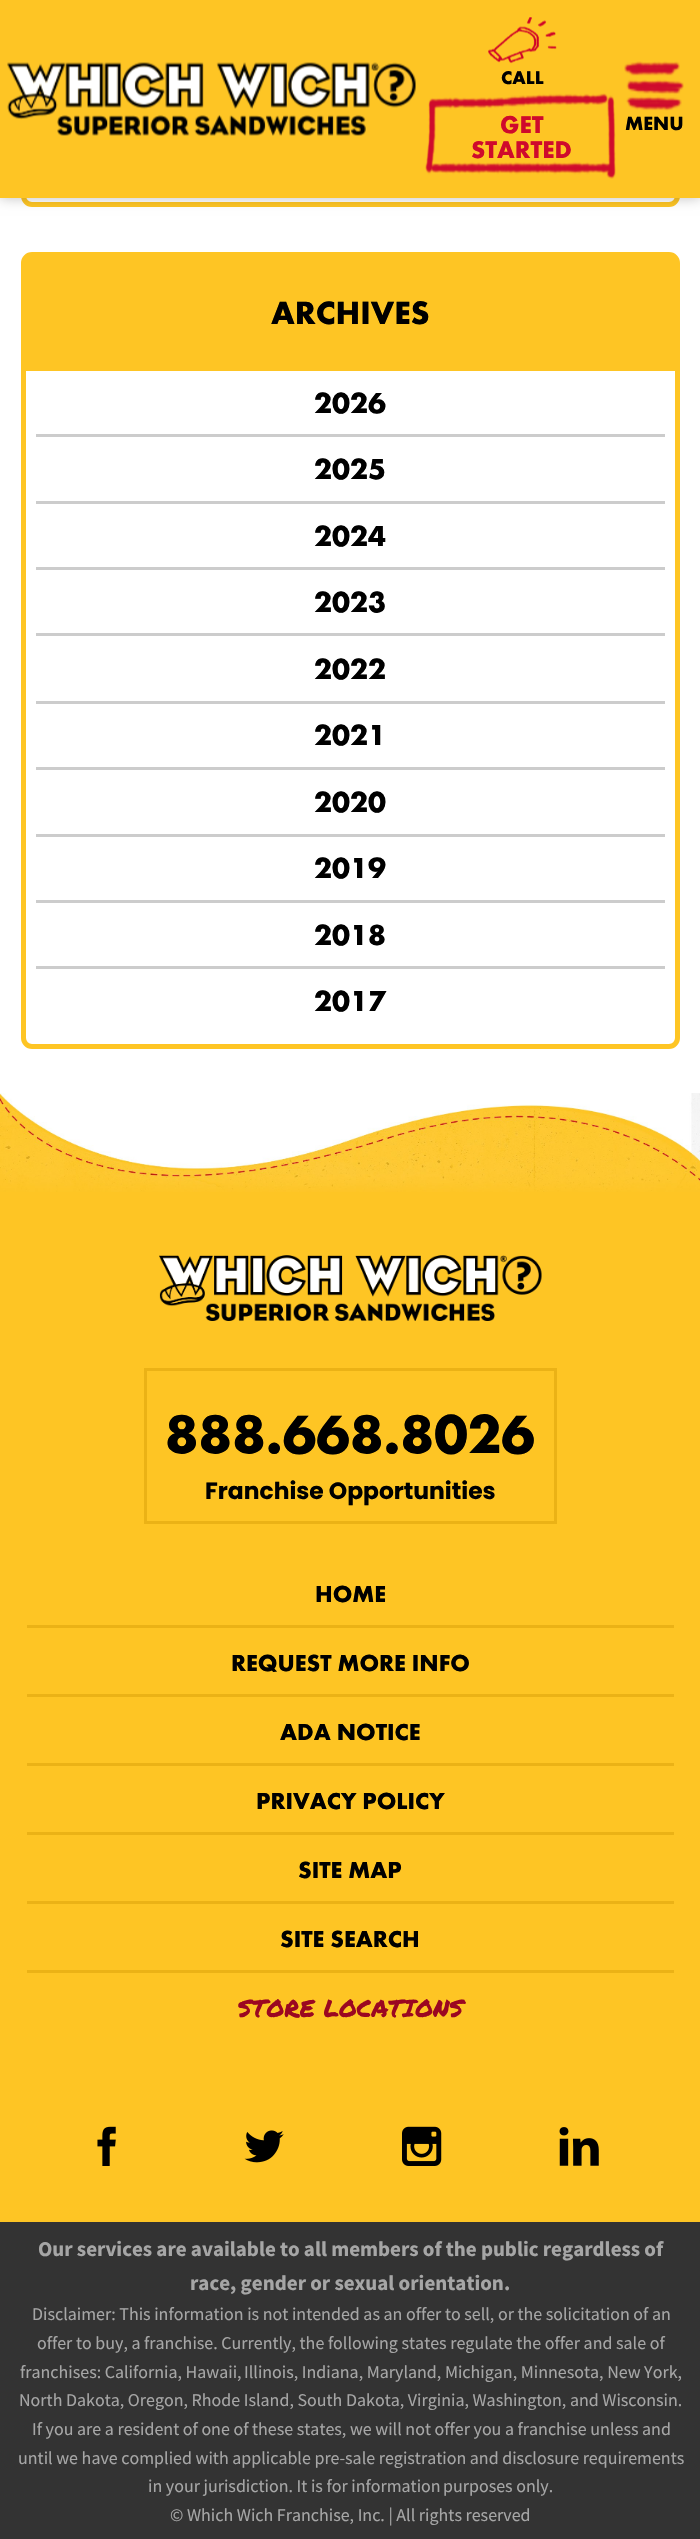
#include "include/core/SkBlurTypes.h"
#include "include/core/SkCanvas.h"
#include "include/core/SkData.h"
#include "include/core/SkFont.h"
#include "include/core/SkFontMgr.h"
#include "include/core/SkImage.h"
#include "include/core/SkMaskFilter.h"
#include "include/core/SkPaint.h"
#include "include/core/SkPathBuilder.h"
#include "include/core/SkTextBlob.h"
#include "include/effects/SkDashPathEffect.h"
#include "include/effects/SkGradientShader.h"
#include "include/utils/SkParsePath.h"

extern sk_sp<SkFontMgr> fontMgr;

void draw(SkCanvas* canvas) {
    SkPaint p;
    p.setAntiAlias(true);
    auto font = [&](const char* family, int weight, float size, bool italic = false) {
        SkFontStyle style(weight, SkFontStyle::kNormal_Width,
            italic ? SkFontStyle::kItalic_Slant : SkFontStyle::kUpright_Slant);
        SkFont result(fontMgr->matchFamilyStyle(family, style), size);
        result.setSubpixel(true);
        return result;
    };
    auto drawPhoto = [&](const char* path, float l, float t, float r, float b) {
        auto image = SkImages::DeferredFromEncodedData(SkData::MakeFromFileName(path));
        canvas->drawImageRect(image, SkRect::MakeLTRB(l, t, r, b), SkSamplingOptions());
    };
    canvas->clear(0xFFFFFFFF);
    p.setStyle(SkPaint::kStroke_Style);
    p.setStrokeWidth(5);
    p.setColor(0xFFFEC524);
    canvas->drawRoundRect(SkRect::MakeLTRB(23.5f, -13.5f, 677.5f, 204.5f), 8.5f, 8.5f, p);
    p.setStyle(SkPaint::kFill_Style);
    p.setColor(0x40000000);
    p.setMaskFilter(SkMaskFilter::MakeBlur(kNormal_SkBlurStyle, 6));
    canvas->drawRect(SkRect::MakeLTRB(0, 0, 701, 198), p);
    p.setMaskFilter(nullptr);
    p.setColor(0xFFFEC524);
    canvas->drawRect(SkRect::MakeLTRB(0, 0, 700, 198), p);
    drawPhoto("media/1.png", 7, 62, 416, 136);
    drawPhoto("media/2.png", 488, 17, 557, 64);
    auto font1 = font("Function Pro", 700, 19);
    p.setColor(0xFF000000);
    canvas->drawString("CALL", 501, 84, font1, p);
    auto font2 = font("Function Pro", 700, 25);
    p.setColor(0xFFCF0A2C);
    canvas->drawString("GET", 500, 133, font2, p);
    canvas->drawString("STARTED", 471, 158, font2, p);
    drawPhoto("media/3.png", 425, 93, 616, 179);
    drawPhoto("media/4.png", 624, 61, 684, 111);
    auto font3 = font("Function Pro", 700, 20);
    p.setColor(0xFF000000);
    canvas->drawString("MENU", 625, 130, font3, p);
    p.setStyle(SkPaint::kStroke_Style);
    p.setColor(0xFFFEC524);
    canvas->drawRoundRect(SkRect::MakeLTRB(23.5f, 254.5f, 677.5f, 1046.5f), 8.5f, 8.5f, p);
    p.setStyle(SkPaint::kFill_Style);
    canvas->drawRect(SkRect::MakeLTRB(26, 257, 675, 371), p);
    auto font4 = font("Function Pro", 700, 33.5f);
    p.setColor(0xFF000000);
    canvas->drawString("ARCHIVES", 271, 324, font4, p);
    p.setColor(0xFFCCCCCC);
    canvas->drawRect(SkRect::MakeLTRB(36, 434, 665, 437), p);
    auto font5 = font("Function Pro", 700, 30);
    p.setColor(0xFF000000);
    canvas->drawString("2026", 314, 413, font5, p);
    p.setColor(0xFFCCCCCC);
    canvas->drawRect(SkRect::MakeLTRB(36, 501, 665, 504), p);
    p.setColor(0xFF000000);
    canvas->drawString("2025", 314, 479, font5, p);
    p.setColor(0xFFCCCCCC);
    canvas->drawRect(SkRect::MakeLTRB(36, 567, 665, 570), p);
    p.setColor(0xFF000000);
    canvas->drawString("2024", 314, 546, font5, p);
    p.setColor(0xFFCCCCCC);
    canvas->drawRect(SkRect::MakeLTRB(36, 633, 665, 636), p);
    p.setColor(0xFF000000);
    canvas->drawString("2023", 314, 612, font5, p);
    p.setColor(0xFFCCCCCC);
    canvas->drawRect(SkRect::MakeLTRB(36, 701, 665, 704), p);
    p.setColor(0xFF000000);
    canvas->drawString("2022", 314, 679, font5, p);
    p.setColor(0xFFCCCCCC);
    canvas->drawRect(SkRect::MakeLTRB(36, 767, 665, 770), p);
    p.setColor(0xFF000000);
    canvas->drawString("2021", 314, 745, font5, p);
    p.setColor(0xFFCCCCCC);
    canvas->drawRect(SkRect::MakeLTRB(36, 834, 665, 837), p);
    p.setColor(0xFF000000);
    canvas->drawString("2020", 314, 812, font5, p);
    p.setColor(0xFFCCCCCC);
    canvas->drawRect(SkRect::MakeLTRB(36, 900, 665, 903), p);
    p.setColor(0xFF000000);
    canvas->drawString("2019", 314, 878, font5, p);
    p.setColor(0xFFCCCCCC);
    canvas->drawRect(SkRect::MakeLTRB(36, 966, 665, 969), p);
    p.setColor(0xFF000000);
    canvas->drawString("2018", 314, 945, font5, p);
    canvas->drawString("2017", 314, 1011, font5, p);
    p.setColor(0xFFFEC524);
    canvas->drawRect(SkRect::MakeLTRB(0, 1192, 700, 2222), p);
    drawPhoto("media/5.png", 0, 1093, 700, 1192);
    drawPhoto("media/6.png", 159, 1255, 542, 1321);
    p.setStyle(SkPaint::kStroke_Style);
    p.setStrokeWidth(3);
    p.setColor(0xFFEBB216);
    canvas->drawRect(SkRect::MakeLTRB(145.5f, 1369.5f, 555.5f, 1522.5f), p);
    auto font6 = font("Function Pro", 700, 56);
    p.setStyle(SkPaint::kFill_Style);
    p.setColor(0xFF000000);
    canvas->drawString("888.668.8026", 165, 1453, font6, p);
    auto font7 = font("Poppins", 700, 23.4f);
    canvas->drawString("Franchise Opportunities", 205, 1499, font7, p);
    p.setColor(0xFFEBB216);
    canvas->drawRect(SkRect::MakeLTRB(27, 1625, 674, 1628), p);
    auto font8 = font("Function Pro", 700, 24);
    p.setColor(0xFF000000);
    canvas->drawString("HOME", 315, 1602, font8, p);
    p.setColor(0xFFEBB216);
    canvas->drawRect(SkRect::MakeLTRB(27, 1694, 674, 1697), p);
    p.setColor(0xFF000000);
    canvas->drawString("REQUEST MORE INFO", 231, 1671, font8, p);
    p.setColor(0xFFEBB216);
    canvas->drawRect(SkRect::MakeLTRB(27, 1763, 674, 1766), p);
    p.setColor(0xFF000000);
    canvas->drawString("ADA NOTICE", 280, 1740, font8, p);
    p.setColor(0xFFEBB216);
    canvas->drawRect(SkRect::MakeLTRB(27, 1832, 674, 1835), p);
    p.setColor(0xFF000000);
    canvas->drawString("PRIVACY POLICY", 256, 1809, font8, p);
    p.setColor(0xFFEBB216);
    canvas->drawRect(SkRect::MakeLTRB(27, 1901, 674, 1904), p);
    p.setColor(0xFF000000);
    canvas->drawString("SITE MAP", 298, 1878, font8, p);
    p.setColor(0xFFEBB216);
    canvas->drawRect(SkRect::MakeLTRB(27, 1970, 674, 1973), p);
    p.setColor(0xFF000000);
    canvas->drawString("SITE SEARCH", 280, 1947, font8, p);
    auto font9 = font("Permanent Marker", 400, 24);
    p.setColor(0xFF9B0721);
    canvas->drawString("STORE LOCATIONS", 238, 2017, font9, p);
    drawPhoto("media/7.png", 97, 2126, 116, 2166);
    drawPhoto("media/8.png", 244, 2130, 284, 2163);
    drawPhoto("media/9.png", 402, 2126, 442, 2166);
    drawPhoto("media/10.png", 559, 2127, 599, 2166);
    p.setColor(0xFF333333);
    canvas->drawRect(SkRect::MakeLTRB(0, 2222, 700, 2539), p);
    auto font10 = font("Source Sans Pro", 700, 21);
    p.setColor(0xFFA6A6A6);
    canvas->drawString("Our services are available to all members of the public regardless of", 38, 2256, font10, p);
    canvas->drawString("race, gender or sexual orientation.", 190, 2290, font10, p);
    auto font11 = font("Source Sans Pro", 400, 17.95f);
    {
        const struct { const char* s; float x, y; } items[] = {
            {"Disclaimer: This information is not intended as an offer to sell, or the solicitation of an", 32, 2320},
            {"offer to buy, a franchise. Currently, the following states regulate the offer and sale of", 37, 2349},
            {"franchises: California, Hawaii,", 20, 2378},
            {"Illinois, Indiana, Maryland, Michigan, Minnesota, New York,", 244, 2378},
            {"North Dakota, Oregon, Rhode Island, South Dakota, Virginia, Washington, and Wisconsin.", 19, 2406},
            {"If you are a resident of one of these states, we will not offer you a franchise unless and", 32, 2435},
            {"until we have complied with applicable pre-sale registration and disclosure requirements", 18, 2464},
            {"in your jurisdiction. It is for information", 148, 2492},
            {"purposes only.", 443, 2492},
            {"© Which Wich Franchise, Inc. | All rights reserved", 170, 2521},
        };
        for (auto [s, x, y] : items) {
            canvas->drawString(s, x, y, font11, p);
        }
    }
}
